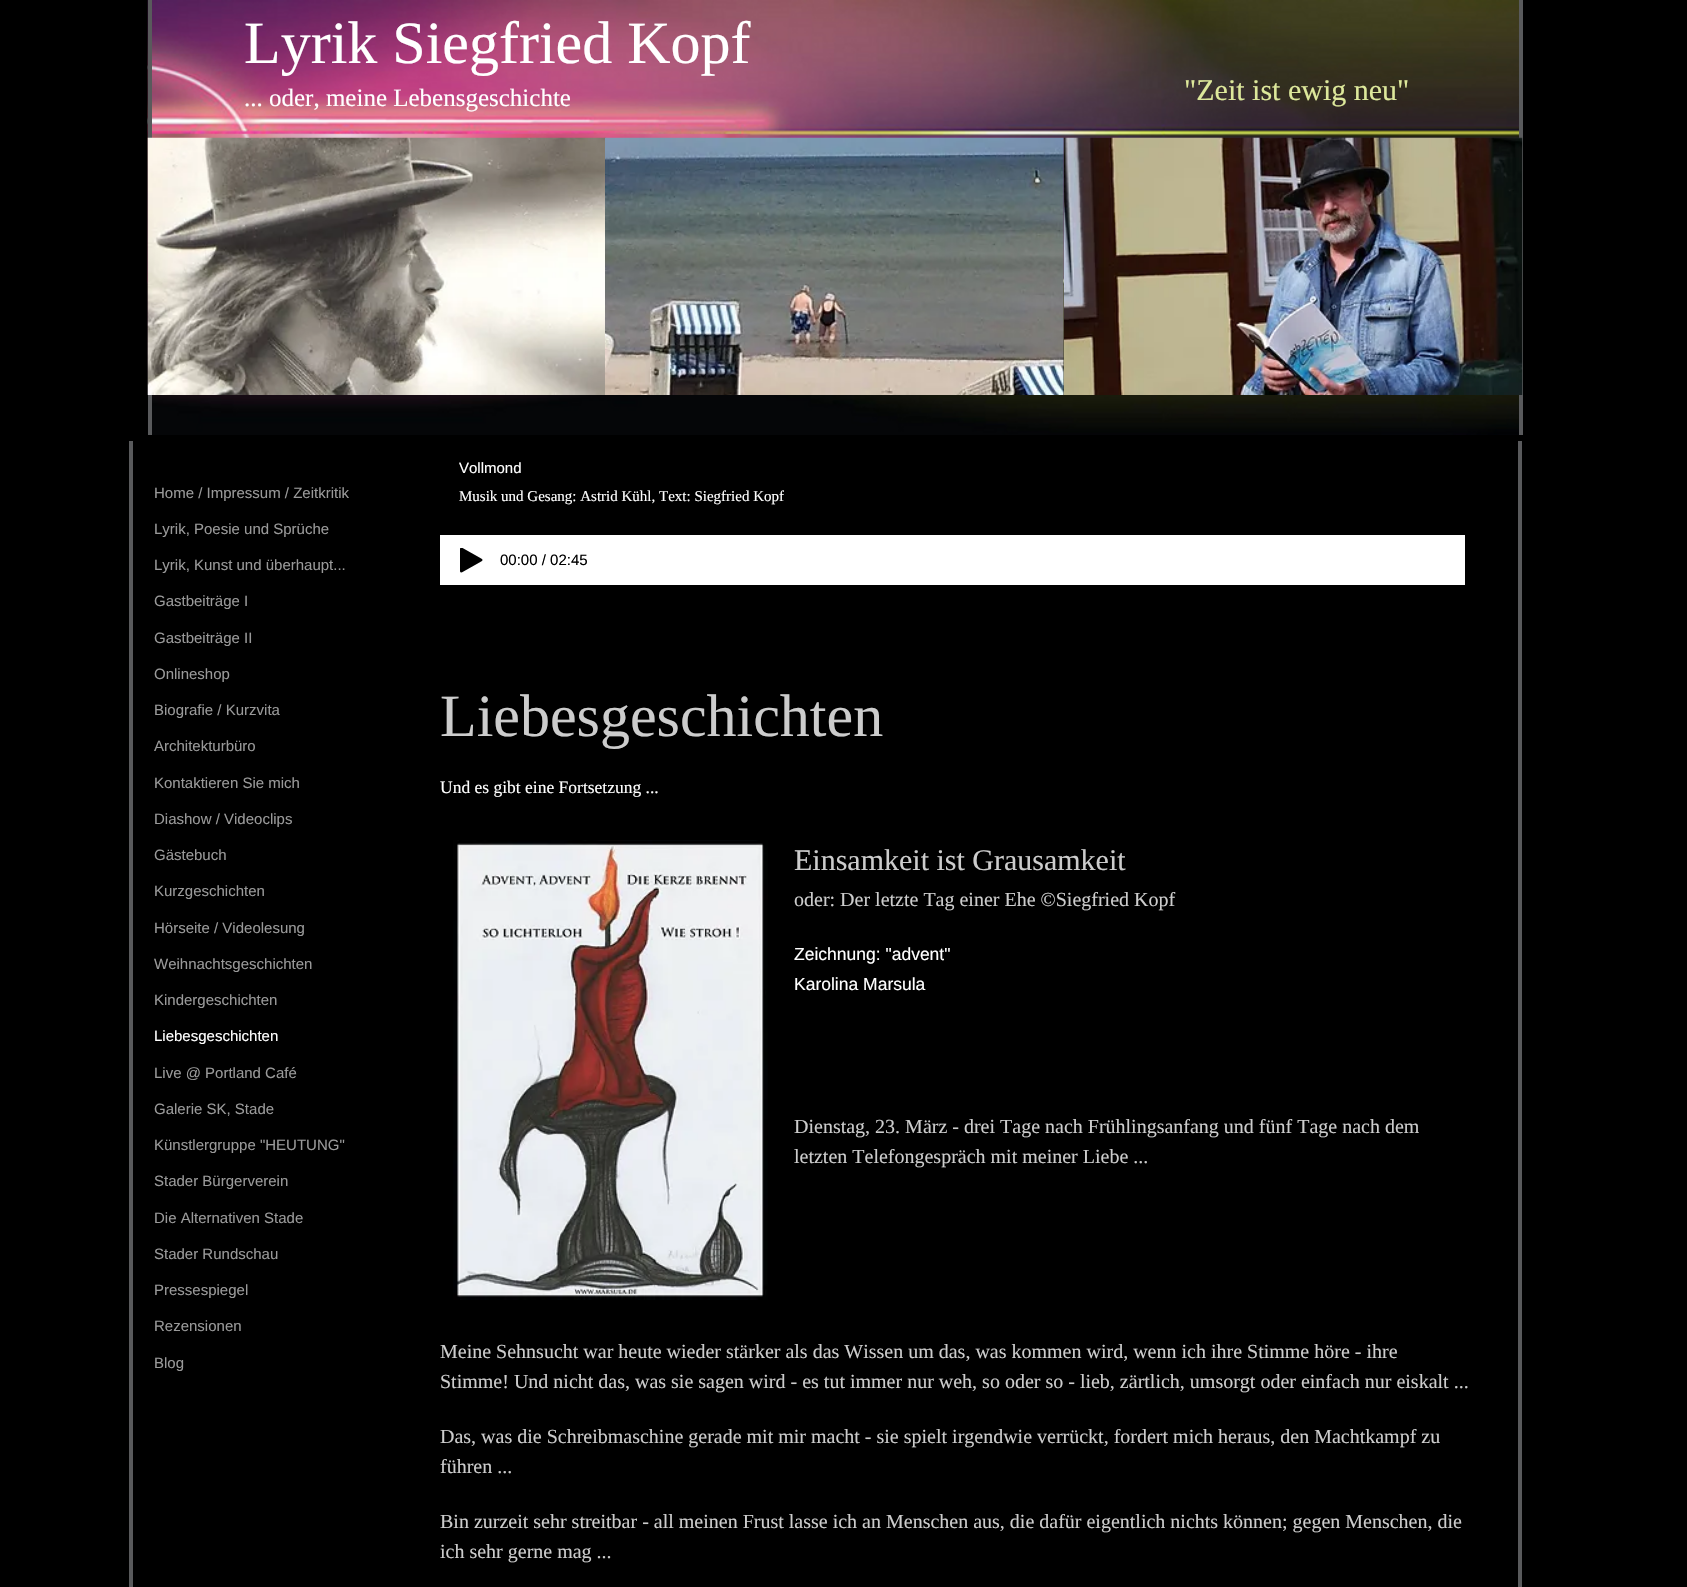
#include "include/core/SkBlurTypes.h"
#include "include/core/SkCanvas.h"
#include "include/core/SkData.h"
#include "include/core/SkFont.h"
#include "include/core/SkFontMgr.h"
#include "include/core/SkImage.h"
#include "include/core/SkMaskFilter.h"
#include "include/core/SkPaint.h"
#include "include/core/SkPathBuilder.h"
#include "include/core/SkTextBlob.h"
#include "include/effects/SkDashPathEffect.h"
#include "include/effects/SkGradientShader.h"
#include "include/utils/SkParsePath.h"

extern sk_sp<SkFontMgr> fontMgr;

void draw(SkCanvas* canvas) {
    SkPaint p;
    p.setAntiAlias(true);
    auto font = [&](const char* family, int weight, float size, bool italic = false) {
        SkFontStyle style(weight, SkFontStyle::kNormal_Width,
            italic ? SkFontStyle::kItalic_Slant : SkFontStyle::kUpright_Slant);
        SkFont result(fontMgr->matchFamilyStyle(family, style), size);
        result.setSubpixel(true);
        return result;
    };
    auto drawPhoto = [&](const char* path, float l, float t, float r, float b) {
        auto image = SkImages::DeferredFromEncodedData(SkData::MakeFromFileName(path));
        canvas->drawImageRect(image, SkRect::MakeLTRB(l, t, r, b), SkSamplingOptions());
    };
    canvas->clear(0xFF000000);
    drawPhoto("media/1.png", 147, 0, 1519, 435);
    p.setColor(0xFF595A5C);
    canvas->drawRect(SkRect::MakeLTRB(148, 0, 152, 435), p);
    auto font1 = font("Liberation Serif", 400, 60);
    p.setColor(0xFFFFFFFF);
    canvas->drawString("Lyrik Siegfried Kopf", 244, 63, font1, p);
    auto font2 = font("Liberation Serif", 400, 25);
    canvas->drawString("... oder, meine Lebensgeschichte", 244, 106, font2, p);
    auto font3 = font("Liberation Serif", 400, 30);
    p.setColor(0xFFDDE89B);
    canvas->drawString("\"Zeit ist ewig neu\"", 1184, 100, font3, p);
    p.setColor(0xFF595A5C);
    canvas->drawRect(SkRect::MakeLTRB(1519, 0, 1523, 435), p);
    drawPhoto("media/2.png", 147, 137, 606, 395);
    drawPhoto("media/3.png", 605, 137, 1064, 395);
    drawPhoto("media/4.png", 1063, 137, 1523, 395);
    canvas->drawRect(SkRect::MakeLTRB(129, 441, 133, 1587), p);
    auto font4 = font("Liberation Sans", 400, 15);
    p.setColor(0xFF999999);
    {
        const struct { const char* s; float x, y; } items[] = {
            {"Home / Impressum / Zeitkritik", 154, 498},
            {"Lyrik, Poesie und Sprüche", 154, 534},
            {"Lyrik, Kunst und überhaupt...", 154, 570},
            {"Gastbeiträge I", 154, 606},
            {"Gastbeiträge II", 154, 643},
            {"Onlineshop", 154, 679},
            {"Biografie / Kurzvita", 154, 715},
            {"Architekturbüro", 154, 751},
            {"Kontaktieren Sie mich", 154, 788},
            {"Diashow / Videoclips", 154, 824},
            {"Gästebuch", 154, 860},
            {"Kurzgeschichten", 154, 896},
            {"Hörseite / Videolesung", 154, 933},
            {"Weihnachtsgeschichten", 154, 969},
            {"Kindergeschichten", 154, 1005},
        };
        for (auto [s, x, y] : items) {
            canvas->drawString(s, x, y, font4, p);
        }
    }
    p.setColor(0xFFFFFFFF);
    canvas->drawString("Liebesgeschichten", 154, 1041, font4, p);
    p.setColor(0xFF999999);
    {
        const struct { const char* s; float x, y; } items[] = {
            {"Live @ Portland Café", 154, 1078},
            {"Galerie SK, Stade", 154, 1114},
            {"Künstlergruppe \"HEUTUNG\"", 154, 1150},
            {"Stader Bürgerverein", 154, 1186},
            {"Die Alternativen Stade", 154, 1223},
            {"Stader Rundschau", 154, 1259},
            {"Pressespiegel", 154, 1295},
            {"Rezensionen", 154, 1331},
            {"Blog", 154, 1368},
        };
        for (auto [s, x, y] : items) {
            canvas->drawString(s, x, y, font4, p);
        }
    }
    p.setColor(0xFFFFFFFF);
    canvas->drawString("Vollmond", 459, 473, font4, p);
    auto font5 = font("Liberation Serif", 400, 15);
    canvas->drawString("Musik und Gesang: Astrid Kühl, Text: Siegfried Kopf", 459, 501, font5, p);
    canvas->drawRect(SkRect::MakeLTRB(440, 535, 1465, 585), p);
    drawPhoto("media/5.png", 460, 548, 483, 573);
    p.setColor(0xFF000000);
    canvas->drawString("00:00 / 02:45", 500, 565, font4, p);
    p.setColor(0xFFCCCCCC);
    canvas->drawString("Liebesgeschichten", 440, 736, font1, p);
    auto font6 = font("Liberation Serif", 400, 17.5f);
    p.setColor(0xFFFFFFFF);
    canvas->drawString("Und es gibt eine Fortsetzung ...", 440, 793, font6, p);
    drawPhoto("media/6.png", 453, 840, 768, 1300);
    p.setColor(0xFFCCCCCC);
    canvas->drawString("Einsamkeit ist Grausamkeit", 794, 870, font3, p);
    auto font7 = font("Liberation Serif", 400, 20);
    canvas->drawString("oder: Der letzte Tag einer Ehe ©Siegfried Kopf", 794, 906, font7, p);
    auto font8 = font("Liberation Sans", 400, 17.5f);
    p.setColor(0xFFFFFFFF);
    canvas->drawString("Zeichnung: \"advent\"", 794, 960, font8, p);
    canvas->drawString("Karolina Marsula", 794, 990, font8, p);
    p.setColor(0xFFCCCCCC);
    {
        const struct { const char* s; float x, y; } items[] = {
            {"Dienstag, 23. März - drei Tage nach Frühlingsanfang und fünf Tage nach dem", 794, 1133},
            {"letzten Telefongespräch mit meiner Liebe ...", 794, 1163},
            {"Meine Sehnsucht war heute wieder stärker als das Wissen um das, was kommen wird, wenn ich ihre Stimme höre - ihre", 440, 1358},
            {"Stimme! Und nicht das, was sie sagen wird - es tut immer nur weh, so oder so - lieb, zärtlich, umsorgt oder einfach nur eiskalt ...", 440, 1388},
            {"Das, was die Schreibmaschine gerade mit mir macht - sie spielt irgendwie verrückt, fordert mich heraus, den Machtkampf zu", 440, 1443},
            {"führen ...", 440, 1473},
            {"Bin zurzeit sehr streitbar - all meinen Frust lasse ich an Menschen aus, die dafür eigentlich nichts können; gegen Menschen, die", 440, 1528},
            {"ich sehr gerne mag ...", 440, 1558},
        };
        for (auto [s, x, y] : items) {
            canvas->drawString(s, x, y, font7, p);
        }
    }
    p.setColor(0xFF595A5C);
    canvas->drawRect(SkRect::MakeLTRB(1518, 441, 1522, 1587), p);
}
